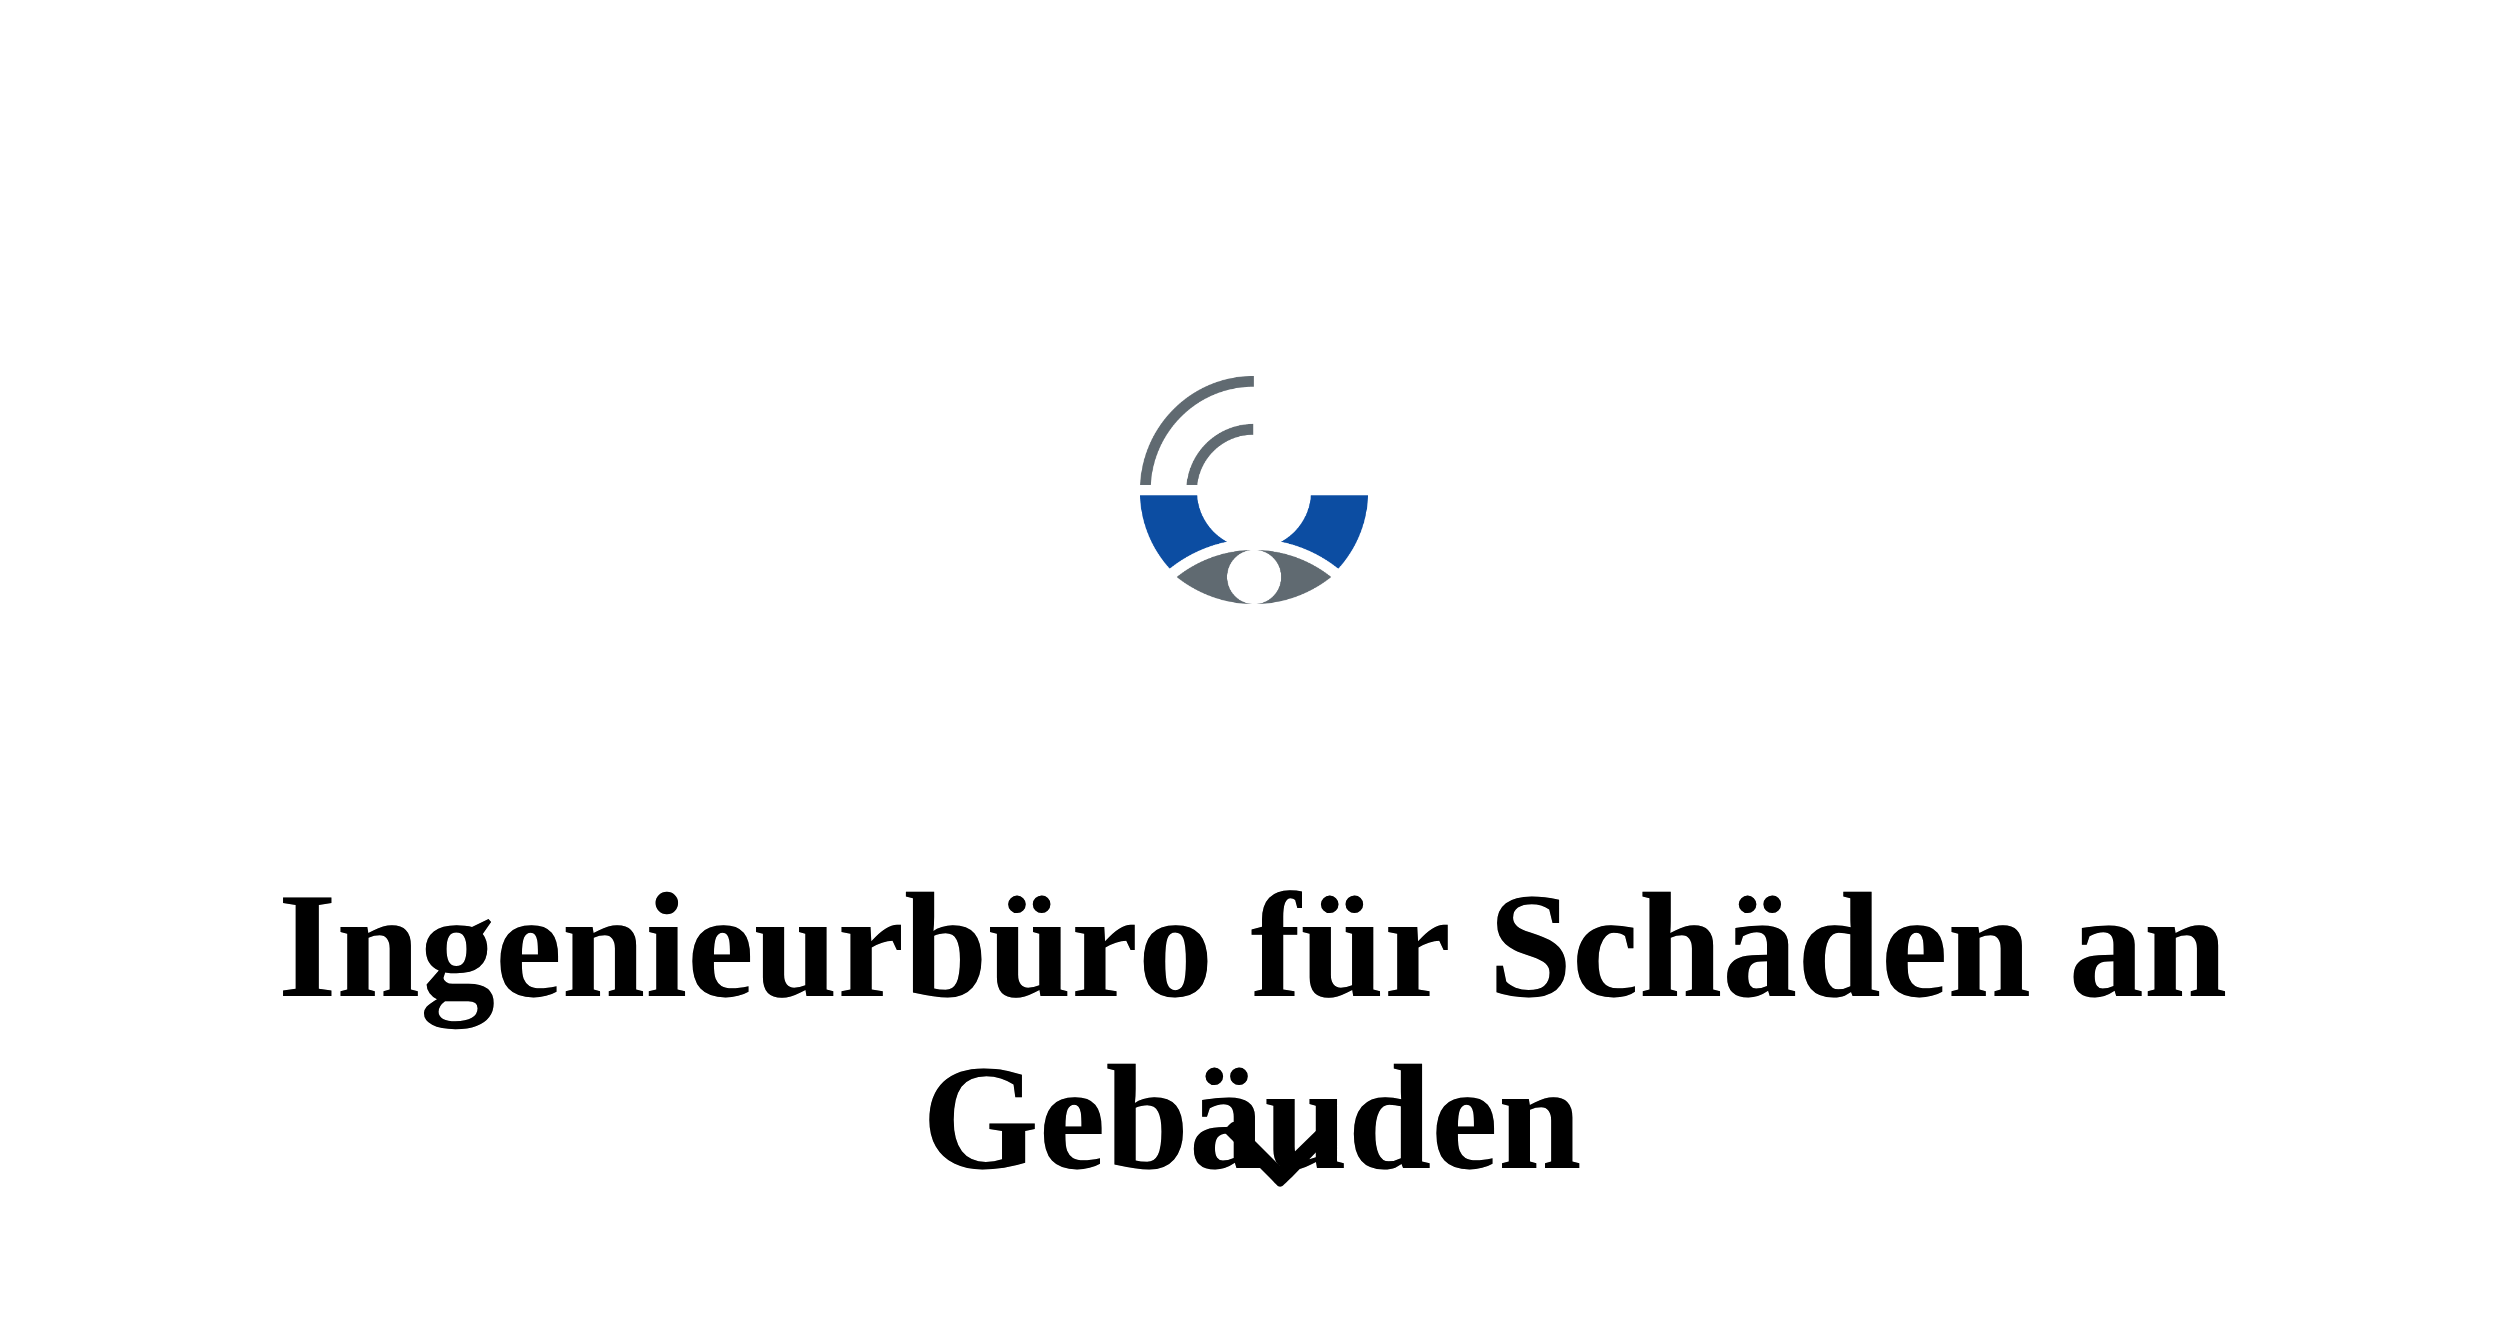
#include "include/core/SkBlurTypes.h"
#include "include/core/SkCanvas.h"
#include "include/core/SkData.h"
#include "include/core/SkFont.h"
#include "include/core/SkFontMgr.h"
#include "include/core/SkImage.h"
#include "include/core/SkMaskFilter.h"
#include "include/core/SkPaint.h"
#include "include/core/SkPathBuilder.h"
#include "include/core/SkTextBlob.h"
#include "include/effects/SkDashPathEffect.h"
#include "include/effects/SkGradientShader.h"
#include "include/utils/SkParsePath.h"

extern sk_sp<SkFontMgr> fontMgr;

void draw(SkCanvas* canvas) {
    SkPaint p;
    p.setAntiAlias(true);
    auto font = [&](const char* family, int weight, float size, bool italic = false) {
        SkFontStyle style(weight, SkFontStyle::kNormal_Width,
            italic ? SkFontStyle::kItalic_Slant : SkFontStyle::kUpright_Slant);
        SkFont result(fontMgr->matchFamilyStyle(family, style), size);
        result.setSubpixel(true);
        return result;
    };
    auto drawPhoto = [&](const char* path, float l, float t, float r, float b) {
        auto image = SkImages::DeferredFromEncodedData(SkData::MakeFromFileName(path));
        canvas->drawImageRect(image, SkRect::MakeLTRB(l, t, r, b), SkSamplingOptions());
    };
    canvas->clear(0xFFFFFFFF);
    drawPhoto("media/1.png", 1140, 376, 1368, 604);
    auto font1 = font("Liberation Serif", 700, 150.25f);
    p.setColor(0xFF000000);
    canvas->drawString("Ingenieurbüro für Schäden an", 278, 996, font1, p);
    canvas->drawString("Gebäuden", 922, 1168, font1, p);
    canvas->drawPath(SkPathBuilder().moveTo(1335, 1128).cubicTo(1340, 1133, 1327, 1141, 1326, 1142).lineTo(1292, 1177).cubicTo(1278, 1190, 1282, 1190, 1269, 1177).lineTo(1234, 1142).cubicTo(1224, 1131, 1221, 1133, 1230, 1124).cubicTo(1236, 1118, 1239, 1125, 1244, 1130).lineTo(1280, 1166).lineTo(1324, 1123).cubicTo(1328, 1119, 1333, 1126, 1335, 1128).close().detach(), p);
}
